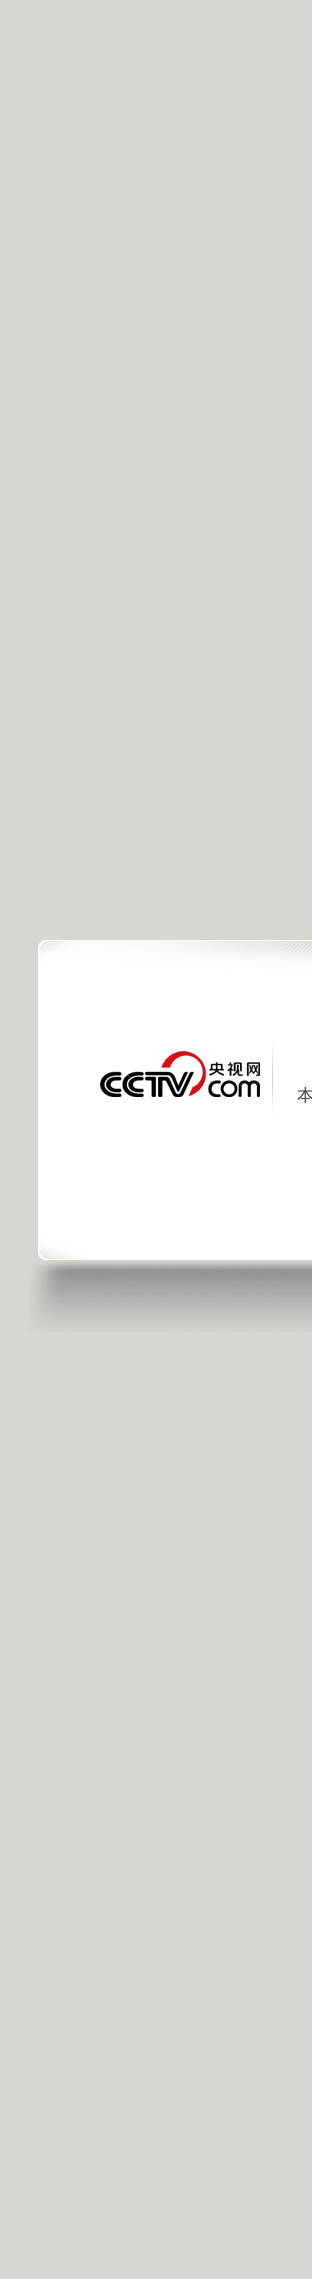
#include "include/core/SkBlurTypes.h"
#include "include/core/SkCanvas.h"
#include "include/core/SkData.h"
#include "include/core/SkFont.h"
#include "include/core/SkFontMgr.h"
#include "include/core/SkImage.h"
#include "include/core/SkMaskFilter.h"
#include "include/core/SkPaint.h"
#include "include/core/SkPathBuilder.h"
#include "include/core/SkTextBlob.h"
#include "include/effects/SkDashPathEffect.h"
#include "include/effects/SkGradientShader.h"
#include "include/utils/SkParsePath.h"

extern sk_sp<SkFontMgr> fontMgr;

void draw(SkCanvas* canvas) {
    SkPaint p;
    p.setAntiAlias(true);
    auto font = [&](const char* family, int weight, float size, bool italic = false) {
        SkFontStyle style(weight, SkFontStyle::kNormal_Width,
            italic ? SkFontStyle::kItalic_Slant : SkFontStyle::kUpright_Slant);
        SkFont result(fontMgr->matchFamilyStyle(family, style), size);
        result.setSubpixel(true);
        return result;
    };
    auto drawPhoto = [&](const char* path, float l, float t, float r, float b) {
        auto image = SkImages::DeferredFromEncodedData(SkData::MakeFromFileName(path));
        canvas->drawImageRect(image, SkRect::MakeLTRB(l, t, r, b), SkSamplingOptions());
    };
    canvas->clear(0xFFD6D6D2);
    drawPhoto("media/1.png", 29, 940, 312, 1332);
    auto font1 = font("WenQuanYi Zen Hei", 500, 17);
    p.setColor(0xFF504E4E);
    canvas->drawString("本", 297, 1101, font1, p);
}
